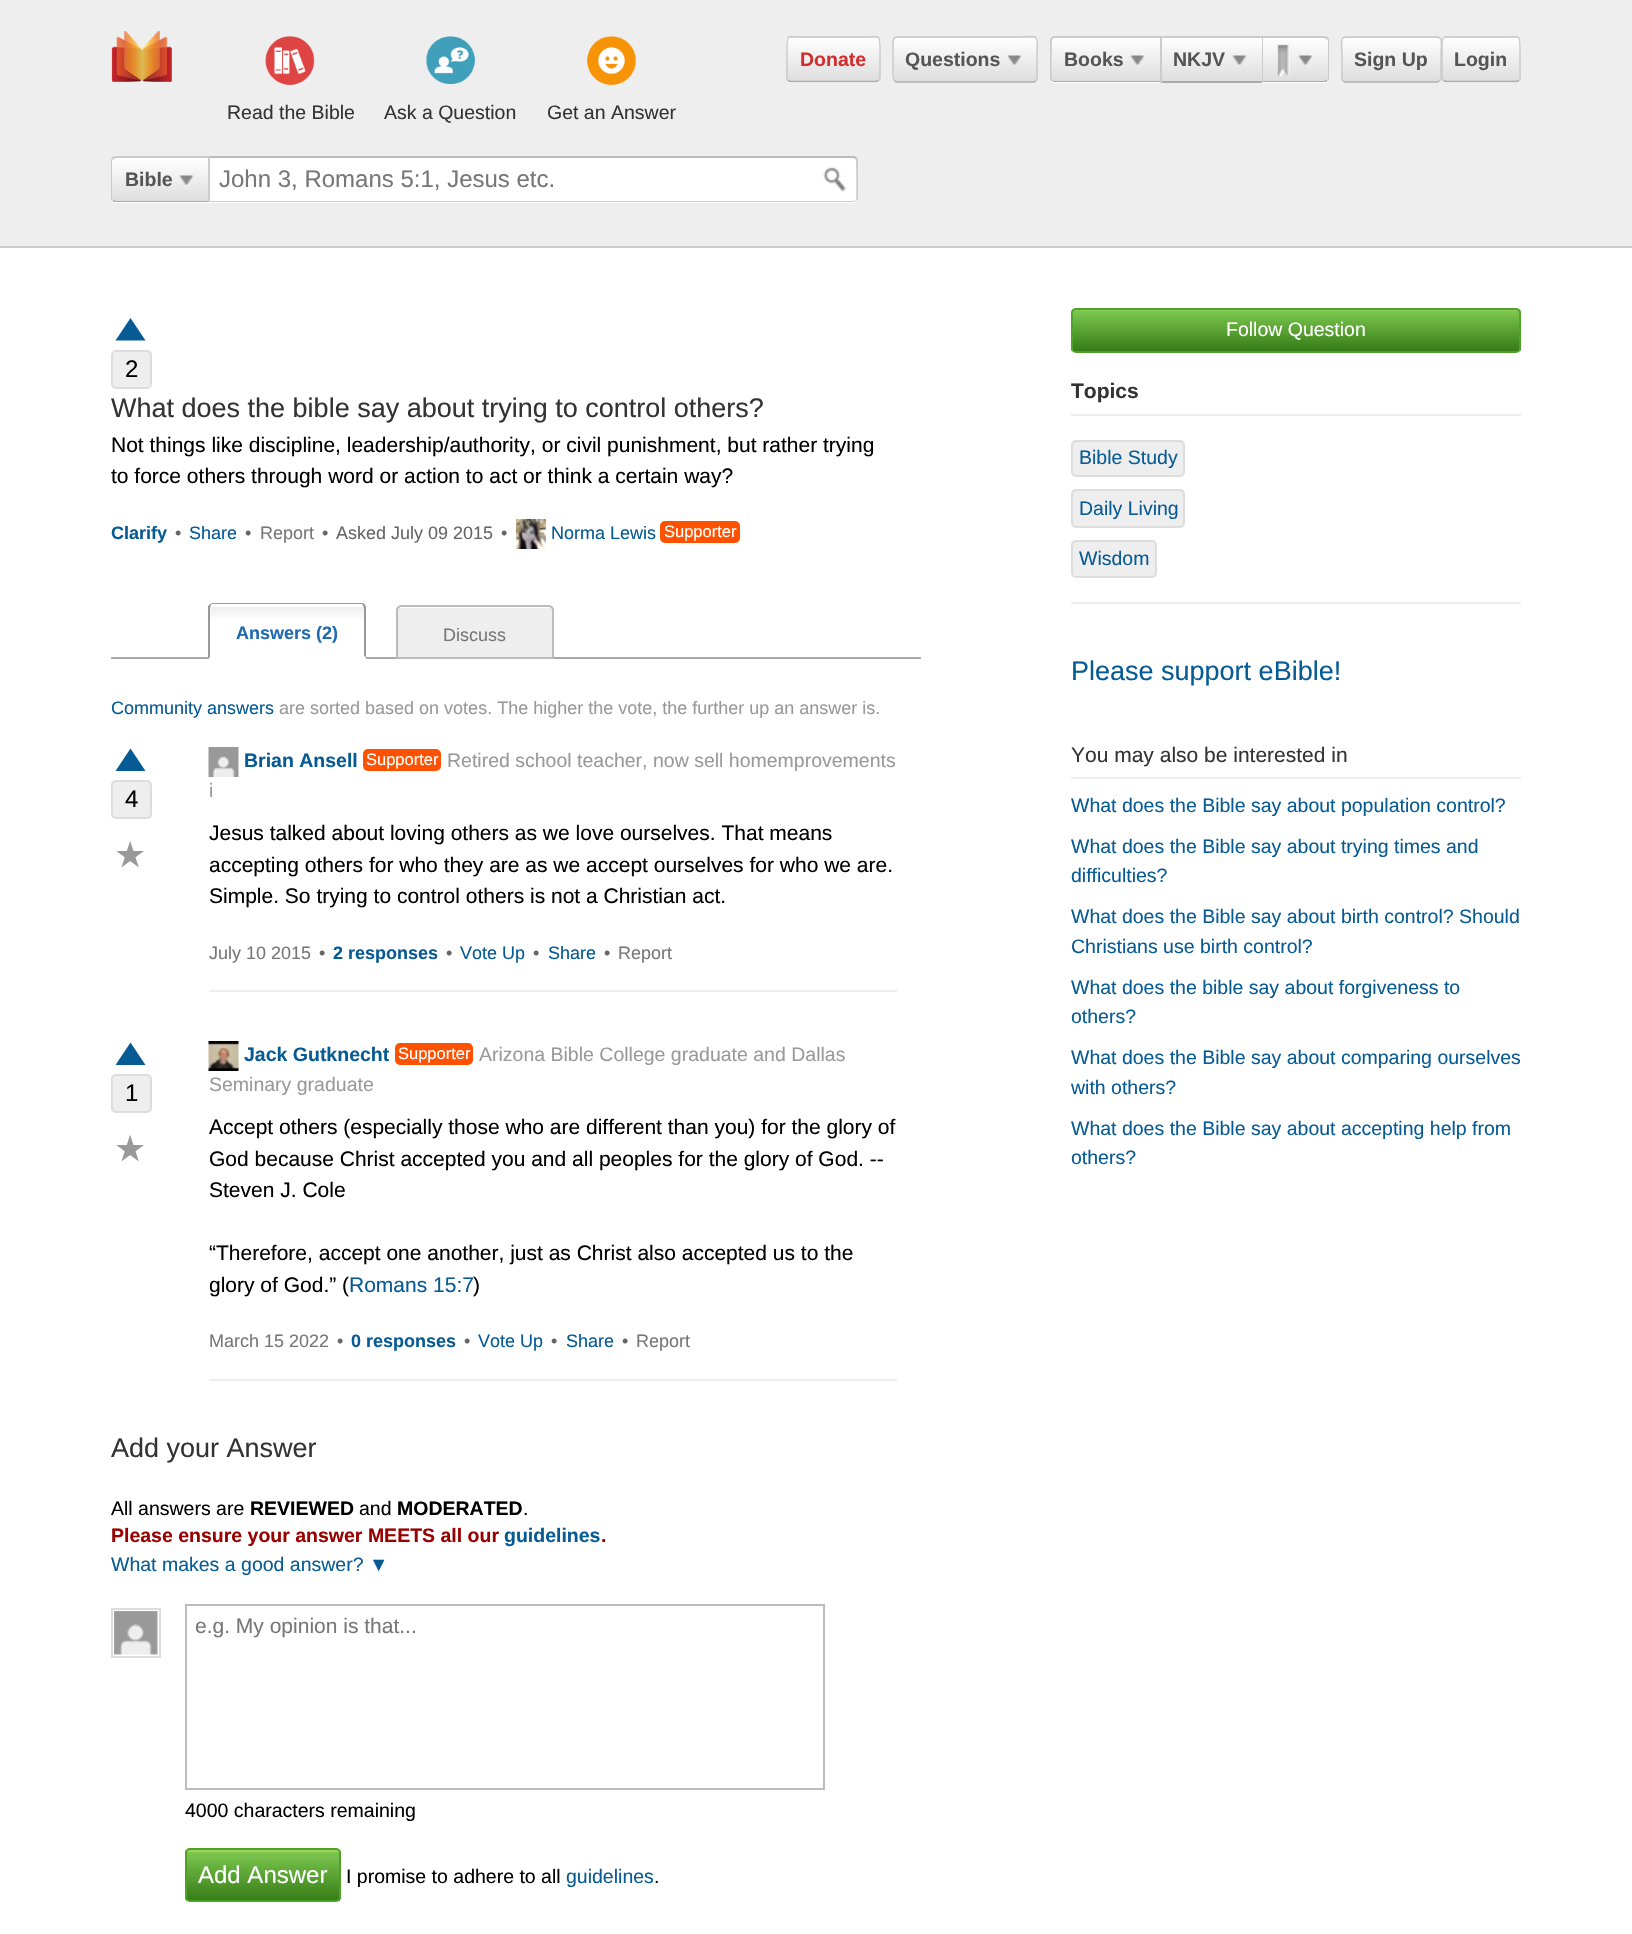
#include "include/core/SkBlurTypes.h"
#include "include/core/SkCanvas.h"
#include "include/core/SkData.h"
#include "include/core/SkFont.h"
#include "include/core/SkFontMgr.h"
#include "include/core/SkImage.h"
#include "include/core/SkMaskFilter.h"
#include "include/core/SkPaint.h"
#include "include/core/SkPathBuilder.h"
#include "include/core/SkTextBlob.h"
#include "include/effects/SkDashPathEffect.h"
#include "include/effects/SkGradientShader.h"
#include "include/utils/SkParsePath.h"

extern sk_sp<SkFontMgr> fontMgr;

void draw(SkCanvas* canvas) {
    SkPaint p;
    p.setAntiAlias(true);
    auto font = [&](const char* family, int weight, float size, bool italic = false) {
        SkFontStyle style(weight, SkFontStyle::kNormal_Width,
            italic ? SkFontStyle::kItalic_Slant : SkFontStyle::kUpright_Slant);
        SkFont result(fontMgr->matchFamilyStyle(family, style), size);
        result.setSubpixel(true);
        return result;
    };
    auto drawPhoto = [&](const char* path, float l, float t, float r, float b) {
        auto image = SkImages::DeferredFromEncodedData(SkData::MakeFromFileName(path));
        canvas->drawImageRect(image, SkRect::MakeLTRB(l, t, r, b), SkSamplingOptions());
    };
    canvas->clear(0xFFFFFFFF);
    p.setColor(0xFFEEEEEE);
    canvas->drawRect(SkRect::MakeLTRB(0, 0, 1632, 246), p);
    p.setColor(0xFFCCCCCC);
    canvas->drawRect(SkRect::MakeLTRB(0, 246, 1632, 248), p);
    drawPhoto("media/1.png", 111, 30, 172, 82);
    canvas->save();
    canvas->clipPath(SkPathBuilder().moveTo(791, 36).lineTo(876, 36).cubicTo(879, 36, 881, 38, 881, 41).lineTo(881, 78).cubicTo(881, 81, 879, 83, 876, 83).lineTo(791, 83).cubicTo(788, 83, 786, 81, 786, 78).lineTo(786, 41).cubicTo(786, 38, 788, 36, 791, 36).close().detach(), true);
    {
        const SkColor colors[] = {0xFFFFFFFF, 0xFFDEDEDE};
        const float stops[] = {0, 1};
        const SkPoint ends[] = {{833, -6}, {833, 38}};
        p.setShader(SkGradientShader::MakeLinear(ends, colors, stops, 2, SkTileMode::kClamp));
        p.setAlpha(255);
    }
    canvas->drawRect(SkRect::MakeLTRB(786, 36, 881, 38), p);
    {
        const SkColor colors[] = {0xFFFFFFFF, 0xFFDEDEDE};
        const float stops[] = {0, 1};
        const SkPoint ends[] = {{833, 37}, {833, 81}};
        p.setShader(SkGradientShader::MakeLinear(ends, colors, stops, 2, SkTileMode::kClamp));
        p.setAlpha(255);
    }
    canvas->drawRect(SkRect::MakeLTRB(786, 38, 881, 81), p);
    {
        const SkColor colors[] = {0xFFFFFFFF, 0xFFDEDEDE};
        const float stops[] = {0, 1};
        const SkPoint ends[] = {{833, 81}, {833, 125}};
        p.setShader(SkGradientShader::MakeLinear(ends, colors, stops, 2, SkTileMode::kClamp));
        p.setAlpha(255);
    }
    canvas->drawRect(SkRect::MakeLTRB(786, 81, 881, 83), p);
    canvas->restore();
    p.setStyle(SkPaint::kStroke_Style);
    p.setStrokeWidth(1.5f);
    p.setShader(nullptr);
    p.setColor(0xFFAAAAAA);
    canvas->drawPath(SkPathBuilder().moveTo(878.5f, 80.5f).lineTo(876.5f, 81.5f).lineTo(790, 81.5f).lineTo(788, 80.5f).detach(), p);
    p.setColor(0xFFCCCCCC);
    canvas->drawPath(SkPathBuilder().moveTo(788, 80.5f).cubicTo(786, 78.5f, 787, 73.5f, 787, 72).lineTo(787, 47).cubicTo(787, 33, 788.5f, 37, 805, 37).lineTo(862, 37).cubicTo(878, 37, 880, 33, 880, 47).lineTo(880, 72).cubicTo(880, 73.5f, 880.5f, 78.5f, 878.5f, 80.5f).detach(), p);
    auto font1 = font("Liberation Sans", 700, 19.5f);
    p.setStyle(SkPaint::kFill_Style);
    p.setColor(0xFFD22E2E);
    canvas->drawString("Donate", 800, 66, font1, p);
    canvas->save();
    canvas->clipPath(SkPathBuilder().moveTo(898, 36).lineTo(1033, 36).cubicTo(1036, 36, 1038, 38, 1038, 41).lineTo(1038, 78).cubicTo(1038, 81, 1036, 83, 1033, 83).lineTo(898, 83).cubicTo(895, 83, 893, 81, 893, 78).lineTo(893, 41).cubicTo(893, 38, 895, 36, 898, 36).close().detach(), true);
    {
        const SkColor colors[] = {0xFFFFFFFF, 0xFFDEDEDE};
        const float stops[] = {0, 1};
        const SkPoint ends[] = {{965, -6}, {965, 38}};
        p.setShader(SkGradientShader::MakeLinear(ends, colors, stops, 2, SkTileMode::kClamp));
        p.setAlpha(255);
    }
    canvas->drawRect(SkRect::MakeLTRB(893, 36, 1038, 38), p);
    {
        const SkColor colors[] = {0xFFFFFFFF, 0xFFDEDEDE};
        const float stops[] = {0, 1};
        const SkPoint ends[] = {{965, 37}, {965, 81}};
        p.setShader(SkGradientShader::MakeLinear(ends, colors, stops, 2, SkTileMode::kClamp));
        p.setAlpha(255);
    }
    canvas->drawRect(SkRect::MakeLTRB(893, 38, 1038, 81), p);
    {
        const SkColor colors[] = {0xFFFFFFFF, 0xFFDEDEDE};
        const float stops[] = {0, 1};
        const SkPoint ends[] = {{965, 81}, {965, 125}};
        p.setShader(SkGradientShader::MakeLinear(ends, colors, stops, 2, SkTileMode::kClamp));
        p.setAlpha(255);
    }
    canvas->drawRect(SkRect::MakeLTRB(893, 81, 1038, 83), p);
    canvas->restore();
    p.setStyle(SkPaint::kStroke_Style);
    p.setShader(nullptr);
    p.setColor(0xFFAAAAAA);
    canvas->drawPath(SkPathBuilder().moveTo(1036, 80.5f).cubicTo(1035.5f, 81.5f, 1034.5f, 82, 1033.5f, 82).lineTo(897, 82).cubicTo(896, 82, 895, 81.5f, 894.5f, 80.5f).detach(), p);
    p.setColor(0xFFCCCCCC);
    canvas->drawPath(SkPathBuilder().moveTo(894.5f, 80.5f).cubicTo(892, 78, 893, 68.5f, 893, 65.5f).lineTo(893, 47).cubicTo(893, 44, 892, 37, 897, 37).lineTo(1011, 37).cubicTo(1042, 37, 1037, 31, 1037, 59).lineTo(1037, 72).cubicTo(1037, 73.5f, 1038, 78.5f, 1036, 80.5f).detach(), p);
    p.setStyle(SkPaint::kFill_Style);
    p.setColor(0xFF555555);
    canvas->drawString("Questions", 905, 66, font1, p);
    drawPhoto("media/2.png", 1007, 55, 1022, 65);
    canvas->save();
    canvas->clipPath(SkPathBuilder().moveTo(1055, 36).lineTo(1161, 36).lineTo(1161, 83).lineTo(1055, 83).cubicTo(1052, 83, 1050, 81, 1050, 78).lineTo(1050, 41).cubicTo(1050, 38, 1052, 36, 1055, 36).close().detach(), true);
    {
        const SkColor colors[] = {0xFFFFFFFF, 0xFFDEDEDE};
        const float stops[] = {0, 1};
        const SkPoint ends[] = {{1106, 37}, {1106, 81}};
        p.setShader(SkGradientShader::MakeLinear(ends, colors, stops, 2, SkTileMode::kClamp));
        p.setAlpha(255);
    }
    canvas->drawRect(SkRect::MakeLTRB(1050, 38, 1160, 81), p);
    {
        const SkColor colors[] = {0xFFFFFFFF, 0xFFDEDEDE};
        const float stops[] = {0, 1};
        const SkPoint ends[] = {{1106, 81}, {1106, 125}};
        p.setShader(SkGradientShader::MakeLinear(ends, colors, stops, 2, SkTileMode::kClamp));
        p.setAlpha(255);
    }
    canvas->drawRect(SkRect::MakeLTRB(1050, 81, 1161, 83), p);
    canvas->restore();
    p.setShader(nullptr);
    p.setColor(0xFFCCCCCC);
    canvas->drawPath(SkPathBuilder().moveTo(1054, 36).lineTo(1051, 37).lineTo(1053, 39).lineTo(1054, 38).lineTo(1159, 38).lineTo(1161, 36).close().detach(), p);
    canvas->drawPath(SkPathBuilder().moveTo(1161, 36).lineTo(1159, 38).lineTo(1160, 38).lineTo(1160, 81).lineTo(1161, 82).close().detach(), p);
    p.setColor(0xFFAAAAAA);
    canvas->drawPath(SkPathBuilder().moveTo(1160, 82).lineTo(1054, 82).lineTo(1052, 81).lineTo(1052, 80).lineTo(1054, 81).lineTo(1160, 81).close().detach(), p);
    p.setColor(0xFFCCCCCC);
    canvas->drawPath(SkPathBuilder().moveTo(1050, 40).lineTo(1050, 78).cubicTo(1050, 79, 1051, 80, 1052, 81).lineTo(1052, 80).cubicTo(1051, 78, 1052, 43, 1052, 40).lineTo(1053, 39).lineTo(1051, 37).close().detach(), p);
    p.setColor(0xFF555555);
    canvas->drawString("Books", 1064, 66, font1, p);
    drawPhoto("media/3.png", 1130, 55, 1145, 65);
    {
        const SkColor colors[] = {0xFFFFFFFF, 0xFFDEDEDE};
        const float stops[] = {0, 1};
        const SkPoint ends[] = {{1211, 37}, {1211, 81}};
        p.setShader(SkGradientShader::MakeLinear(ends, colors, stops, 2, SkTileMode::kClamp));
        p.setAlpha(255);
    }
    canvas->drawRect(SkRect::MakeLTRB(1162, 38, 1262, 81), p);
    p.setShader(nullptr);
    {
        const struct { float l, t, r, b; SkColor color; } items[] = {
            {1160, 36, 1263, 38, 0xFFCCCCCC},
            {1160, 81, 1263, 83, 0xFFAAAAAA},
            {1160, 36, 1162, 83, 0xFFCCCCCC},
        };
        for (auto [l, t, r, b, color] : items) {
            p.setColor(color);
            canvas->drawRect(SkRect::MakeLTRB(l, t, r, b), p);
        }
    }
    p.setColor(0xFF555555);
    canvas->drawString("NKJV", 1173, 66, font1, p);
    drawPhoto("media/2.png", 1232, 55, 1247, 65);
    canvas->save();
    canvas->clipPath(SkPathBuilder().moveTo(1262, 36).lineTo(1324, 36).cubicTo(1327, 36, 1329, 38, 1329, 41).lineTo(1329, 78).cubicTo(1329, 81, 1327, 83, 1324, 83).lineTo(1262, 83).close().detach(), true);
    {
        const SkColor colors[] = {0xFFFFFFFF, 0xFFDEDEDE};
        const float stops[] = {0, 1};
        const SkPoint ends[] = {{1295, 38}, {1295, 81}};
        p.setShader(SkGradientShader::MakeLinear(ends, colors, stops, 2, SkTileMode::kClamp));
        p.setAlpha(255);
    }
    canvas->drawRect(SkRect::MakeLTRB(1263, 38, 1329, 81), p);
    {
        const SkColor colors[] = {0xFFFFFFFF, 0xFFDEDEDE};
        const float stops[] = {0, 1};
        const SkPoint ends[] = {{1295, 81}, {1295, 125}};
        p.setShader(SkGradientShader::MakeLinear(ends, colors, stops, 2, SkTileMode::kClamp));
        p.setAlpha(255);
    }
    canvas->drawRect(SkRect::MakeLTRB(1262, 81, 1329, 83), p);
    canvas->restore();
    p.setShader(nullptr);
    p.setColor(0xFFCCCCCC);
    canvas->drawPath(SkPathBuilder().moveTo(1262, 36).lineTo(1264, 38).lineTo(1324, 38).lineTo(1326, 39).lineTo(1328, 37).cubicTo(1327, 37, 1326, 36, 1324, 36).close().detach(), p);
    canvas->drawPath(SkPathBuilder().moveTo(1329, 78).lineTo(1329, 40).cubicTo(1329, 39, 1329, 38, 1328, 37).lineTo(1326, 39).lineTo(1328, 40).lineTo(1328, 78).lineTo(1327, 80).lineTo(1327, 81).cubicTo(1328, 80, 1329, 79, 1329, 78).close().detach(), p);
    p.setColor(0xFFAAAAAA);
    canvas->drawPath(SkPathBuilder().moveTo(1327, 81).cubicTo(1327, 82, 1325, 82, 1324, 82).lineTo(1262, 82).lineTo(1263, 81).lineTo(1324, 81).lineTo(1327, 80).close().detach(), p);
    p.setColor(0xFFCCCCCC);
    canvas->drawPath(SkPathBuilder().moveTo(1263, 38).lineTo(1264, 38).lineTo(1262, 36).lineTo(1262, 82).lineTo(1263, 81).close().detach(), p);
    drawPhoto("media/4.png", 1277, 44, 1290, 77);
    drawPhoto("media/5.png", 1298, 55, 1313, 65);
    canvas->save();
    canvas->clipPath(SkPathBuilder().moveTo(1346, 36).lineTo(1437, 36).cubicTo(1440, 36, 1442, 38, 1442, 41).lineTo(1442, 78).cubicTo(1442, 81, 1440, 83, 1437, 83).lineTo(1346, 83).cubicTo(1343, 83, 1341, 81, 1341, 78).lineTo(1341, 41).cubicTo(1341, 38, 1343, 36, 1346, 36).close().detach(), true);
    {
        const SkColor colors[] = {0xFFFFFFFF, 0xFFDEDEDE};
        const float stops[] = {0, 1};
        const SkPoint ends[] = {{1391, -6}, {1391, 38}};
        p.setShader(SkGradientShader::MakeLinear(ends, colors, stops, 2, SkTileMode::kClamp));
        p.setAlpha(255);
    }
    canvas->drawRect(SkRect::MakeLTRB(1341, 36, 1442, 38), p);
    {
        const SkColor colors[] = {0xFFFFFFFF, 0xFFDEDEDE};
        const float stops[] = {0, 1};
        const SkPoint ends[] = {{1391, 37}, {1391, 81}};
        p.setShader(SkGradientShader::MakeLinear(ends, colors, stops, 2, SkTileMode::kClamp));
        p.setAlpha(255);
    }
    canvas->drawRect(SkRect::MakeLTRB(1341, 38, 1442, 81), p);
    {
        const SkColor colors[] = {0xFFFFFFFF, 0xFFDEDEDE};
        const float stops[] = {0, 1};
        const SkPoint ends[] = {{1391, 81}, {1391, 125}};
        p.setShader(SkGradientShader::MakeLinear(ends, colors, stops, 2, SkTileMode::kClamp));
        p.setAlpha(255);
    }
    canvas->drawRect(SkRect::MakeLTRB(1341, 81, 1442, 83), p);
    canvas->restore();
    p.setStyle(SkPaint::kStroke_Style);
    p.setShader(nullptr);
    p.setColor(0xFFAAAAAA);
    canvas->drawPath(SkPathBuilder().moveTo(1439.5f, 80.5f).cubicTo(1439, 81.5f, 1438, 82, 1437, 82).lineTo(1345.5f, 82).cubicTo(1344.5f, 82, 1343.5f, 81.5f, 1343, 80.5f).detach(), p);
    p.setColor(0xFFCCCCCC);
    canvas->drawPath(SkPathBuilder().moveTo(1343, 80.5f).cubicTo(1341, 78.5f, 1342, 73.5f, 1342, 72).lineTo(1342, 59).cubicTo(1342, 34, 1336.5f, 37, 1361, 37).lineTo(1422, 37).cubicTo(1446, 37, 1441, 34, 1441, 59).lineTo(1441, 72).cubicTo(1441, 73.5f, 1441.5f, 78.5f, 1439.5f, 80.5f).detach(), p);
    p.setStyle(SkPaint::kFill_Style);
    p.setColor(0xFF555555);
    canvas->drawString("Sign Up", 1354, 66, font1, p);
    canvas->save();
    canvas->clipPath(SkPathBuilder().moveTo(1447, 36).lineTo(1516, 36).cubicTo(1519, 36, 1521, 38, 1521, 41).lineTo(1521, 78).cubicTo(1521, 81, 1519, 83, 1516, 83).lineTo(1447, 83).cubicTo(1444, 83, 1442, 81, 1442, 78).lineTo(1442, 41).cubicTo(1442, 38, 1444, 36, 1447, 36).close().detach(), true);
    {
        const SkColor colors[] = {0xFFFFFFFF, 0xFFDEDEDE};
        const float stops[] = {0, 1};
        const SkPoint ends[] = {{1481, -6}, {1481, 38}};
        p.setShader(SkGradientShader::MakeLinear(ends, colors, stops, 2, SkTileMode::kClamp));
        p.setAlpha(255);
    }
    canvas->drawRect(SkRect::MakeLTRB(1442, 36, 1521, 38), p);
    {
        const SkColor colors[] = {0xFFFFFFFF, 0xFFDEDEDE};
        const float stops[] = {0, 1};
        const SkPoint ends[] = {{1481, 37}, {1481, 81}};
        p.setShader(SkGradientShader::MakeLinear(ends, colors, stops, 2, SkTileMode::kClamp));
        p.setAlpha(255);
    }
    canvas->drawRect(SkRect::MakeLTRB(1442, 38, 1521, 81), p);
    {
        const SkColor colors[] = {0xFFFFFFFF, 0xFFDEDEDE};
        const float stops[] = {0, 1};
        const SkPoint ends[] = {{1481, 81}, {1481, 125}};
        p.setShader(SkGradientShader::MakeLinear(ends, colors, stops, 2, SkTileMode::kClamp));
        p.setAlpha(255);
    }
    canvas->drawRect(SkRect::MakeLTRB(1442, 81, 1521, 83), p);
    canvas->restore();
    p.setStyle(SkPaint::kStroke_Style);
    p.setShader(nullptr);
    p.setColor(0xFFAAAAAA);
    canvas->drawPath(SkPathBuilder().moveTo(1519, 80.5f).lineTo(1517, 81.5f).lineTo(1445.5f, 81.5f).lineTo(1443.5f, 80.5f).detach(), p);
    p.setColor(0xFFCCCCCC);
    canvas->drawPath(SkPathBuilder().moveTo(1443.5f, 80.5f).cubicTo(1441.5f, 78.5f, 1442, 73.5f, 1442, 72).lineTo(1442, 47).cubicTo(1442, 34, 1443.5f, 37, 1458, 37).lineTo(1505, 37).cubicTo(1519, 37, 1520, 34, 1520, 47).lineTo(1520, 72).cubicTo(1520, 73.5f, 1521, 78.5f, 1519, 80.5f).detach(), p);
    p.setStyle(SkPaint::kFill_Style);
    p.setColor(0xFF555555);
    canvas->drawString("Login", 1454, 66, font1, p);
    drawPhoto("media/6.png", 265, 36, 315, 85);
    auto font2 = font("Liberation Sans", 400, 19.5f);
    p.setColor(0xFF333333);
    canvas->drawString("Read the Bible", 227, 119, font2, p);
    drawPhoto("media/7.png", 426, 36, 475, 84);
    canvas->drawString("Ask a Question", 384, 119, font2, p);
    drawPhoto("media/8.png", 587, 36, 636, 85);
    canvas->drawString("Get an Answer", 547, 119, font2, p);
    canvas->save();
    canvas->clipPath(SkPathBuilder().moveTo(116, 156).lineTo(210, 156).lineTo(210, 203).lineTo(116, 203).cubicTo(113, 203, 111, 201, 111, 198).lineTo(111, 161).cubicTo(111, 158, 113, 156, 116, 156).close().detach(), true);
    {
        const SkColor colors[] = {0xFFFFFFFF, 0xFFDEDEDE};
        const float stops[] = {0, 1};
        const SkPoint ends[] = {{161, 158}, {161, 201}};
        p.setShader(SkGradientShader::MakeLinear(ends, colors, stops, 2, SkTileMode::kClamp));
        p.setAlpha(255);
    }
    canvas->drawRect(SkRect::MakeLTRB(111, 158, 208, 201), p);
    {
        const SkColor colors[] = {0xFFFFFFFF, 0xFFDEDEDE};
        const float stops[] = {0, 1};
        const SkPoint ends[] = {{161, 201}, {161, 245}};
        p.setShader(SkGradientShader::MakeLinear(ends, colors, stops, 2, SkTileMode::kClamp));
        p.setAlpha(255);
    }
    canvas->drawRect(SkRect::MakeLTRB(111, 201, 210, 203), p);
    canvas->restore();
    p.setShader(nullptr);
    p.setColor(0xFFCCCCCC);
    canvas->drawPath(SkPathBuilder().moveTo(116, 156).cubicTo(114, 156, 113, 157, 112, 157).lineTo(114, 159).lineTo(116, 158).lineTo(208, 158).lineTo(210, 156).close().detach(), p);
    p.setColor(0xFFAAAAAA);
    canvas->drawPath(SkPathBuilder().moveTo(210, 202).lineTo(116, 202).cubicTo(115, 202, 113, 202, 113, 201).lineTo(113, 200).lineTo(116, 201).lineTo(208, 201).lineTo(208, 200).close().detach(), p);
    p.setColor(0xFFCCCCCC);
    canvas->drawPath(SkPathBuilder().moveTo(111, 160).lineTo(111, 198).cubicTo(111, 199, 112, 200, 113, 201).lineTo(113, 200).lineTo(112, 198).lineTo(112, 160).lineTo(114, 159).lineTo(112, 157).close().detach(), p);
    p.setColor(0xFF555555);
    canvas->drawString("Bible", 125, 186, font1, p);
    drawPhoto("media/9.png", 179, 175, 194, 185);
    p.setColor(0xFFFFFFFF);
    canvas->drawPath(SkPathBuilder().moveTo(209, 156).lineTo(853, 156).cubicTo(856, 156, 858, 158, 858, 161).lineTo(858, 198).cubicTo(858, 201, 856, 203, 853, 203).lineTo(209, 203).close().detach(), p);
    p.setColor(0xFFBBBBBB);
    canvas->drawPath(SkPathBuilder().moveTo(208, 156).lineTo(210, 158).lineTo(854, 158).lineTo(855, 159).lineTo(857, 157).lineTo(854, 156).close().detach(), p);
    p.setColor(0xFFCCCCCC);
    canvas->drawPath(SkPathBuilder().moveTo(858, 198).lineTo(858, 160).cubicTo(858, 159, 858, 158, 857, 157).lineTo(855, 159).lineTo(856, 160).cubicTo(856, 163, 857, 198, 856, 200).lineTo(856, 201).cubicTo(857, 200, 858, 199, 858, 198).close().detach(), p);
    canvas->drawPath(SkPathBuilder().moveTo(856, 201).lineTo(854, 202).lineTo(209, 202).lineTo(210, 201).lineTo(854, 201).lineTo(856, 200).close().detach(), p);
    canvas->drawPath(SkPathBuilder().moveTo(210, 158).lineTo(210, 201).lineTo(208, 202).lineTo(208, 156).close().detach(), p);
    auto font3 = font("Liberation Sans", 400, 24);
    p.setColor(0xFF777777);
    canvas->drawString("John 3, Romans 5:1, Jesus etc.", 219, 187, font3, p);
    drawPhoto("media/10.png", 823, 167, 847, 192);
    p.setColor(0xFF075B95);
    canvas->drawPath(SkPathBuilder().moveTo(145.5f, 340.5f).lineTo(115.5f, 340.5f).lineTo(130.5f, 318).close().detach(), p);
    p.setColor(0xFFEEEEEE);
    canvas->drawRoundRect(SkRect::MakeLTRB(112, 351, 151, 388), 4, 4, p);
    p.setStyle(SkPaint::kStroke_Style);
    p.setStrokeWidth(2);
    p.setColor(0xFFDDDDDD);
    canvas->drawRoundRect(SkRect::MakeLTRB(112, 351, 151, 388), 4, 4, p);
    p.setStyle(SkPaint::kFill_Style);
    p.setColor(0xFF000000);
    canvas->drawString("2", 125, 377, font3, p);
    auto font4 = font("Liberation Sans", 400, 27);
    p.setColor(0xFF333333);
    canvas->drawString("What does the bible say about trying to control others?", 111, 417, font4, p);
    auto font5 = font("Liberation Sans", 400, 21);
    p.setColor(0xFF000000);
    canvas->drawString("Not things like discipline, leadership/authority, or civil punishment, but rather trying", 111, 452, font5, p);
    canvas->drawString("to force others through word or action to act or think a certain way?", 111, 483, font5, p);
    auto font6 = font("Liberation Sans", 700, 18);
    p.setColor(0xFF075B95);
    canvas->drawString("Clarify", 111, 539, font6, p);
    auto font7 = font("Liberation Sans", 400, 18);
    p.setColor(0xFF666666);
    canvas->drawString("•", 175, 539, font7, p);
    p.setColor(0xFF075B95);
    canvas->drawString("Share", 189, 539, font7, p);
    p.setColor(0xFF666666);
    canvas->drawString("•", 245, 539, font7, p);
    p.setColor(0xFF777777);
    canvas->drawString("Report", 260, 539, font7, p);
    p.setColor(0xFF666666);
    {
        const struct { const char* s; float x, y; } items[] = {
            {"•", 322, 539},
            {"Asked July 09 2015", 336, 539},
            {"•", 501, 539},
        };
        for (auto [s, x, y] : items) {
            canvas->drawString(s, x, y, font7, p);
        }
    }
    drawPhoto("media/11.png", 516, 519, 546, 549);
    p.setColor(0xFF075B95);
    canvas->drawString("Norma Lewis", 551, 539, font7, p);
    p.setColor(0xFFFF5200);
    canvas->drawRoundRect(SkRect::MakeLTRB(660, 521, 740, 543), 5, 5, p);
    auto font8 = font("Liberation Sans", 400, 16.5f);
    p.setColor(0xFFFFFFFF);
    canvas->drawString("Supporter", 664, 537, font8, p);
    p.setColor(0xFFAAAAAA);
    canvas->drawRect(SkRect::MakeLTRB(111, 657, 921, 659), p);
    {
        const SkColor colors[] = {0xFFFFFFFF, 0xFFEEEEEE, 0xFFFFFFFF};
        const float stops[] = {0.7f, 0.96f, 0.97f};
        const SkPoint ends[] = {{287, 657}, {287, 605}};
        p.setShader(SkGradientShader::MakeLinear(ends, colors, stops, 3, SkTileMode::kClamp));
        p.setAlpha(255);
    }
    canvas->drawRect(SkRect::MakeLTRB(210, 607, 366, 619), p);
    {
        const SkColor colors[] = {0xFFFFFFFF, 0xFFEEEEEE, 0xFFFFFFFF};
        const float stops[] = {0.7f, 0.96f, 0.97f};
        const SkPoint ends[] = {{287, 710}, {287, 657}};
        p.setShader(SkGradientShader::MakeLinear(ends, colors, stops, 3, SkTileMode::kClamp));
        p.setAlpha(255);
    }
    canvas->drawRect(SkRect::MakeLTRB(209, 657, 366, 659), p);
    p.setShader(nullptr);
    p.setColor(0xFF999999);
    canvas->drawPath(SkPathBuilder().moveTo(213, 603).lineTo(210, 604).lineTo(211, 605).lineTo(212, 604).lineTo(362, 604).lineTo(363, 606).lineTo(365, 604).lineTo(362, 603).close().detach(), p);
    canvas->drawPath(SkPathBuilder().moveTo(366, 658).lineTo(366, 608).cubicTo(366, 606, 365, 605, 365, 604).lineTo(363, 606).lineTo(364, 608).lineTo(364, 656).close().detach(), p);
    p.setColor(0xFFFFFFFF);
    canvas->drawPath(SkPathBuilder().moveTo(366, 658).lineTo(209, 658).lineTo(210, 657).lineTo(364, 657).lineTo(364, 656).close().detach(), p);
    p.setColor(0xFF999999);
    canvas->drawPath(SkPathBuilder().moveTo(208, 606).lineTo(210, 604).lineTo(211, 605).lineTo(210, 608).lineTo(210, 657).lineTo(209, 658).lineTo(208, 658).close().detach(), p);
    p.setColor(0xFF1E6BB2);
    canvas->drawString("Answers (2)", 236, 639, font6, p);
    p.setColor(0xFFEEEEEE);
    canvas->drawRect(SkRect::MakeLTRB(396, 608, 554, 657), p);
    p.setStyle(SkPaint::kStroke_Style);
    p.setColor(0xFFBBBBBB);
    canvas->drawPath(SkPathBuilder().moveTo(401, 606).lineTo(549, 606).cubicTo(551, 606, 553, 608, 553, 610).lineTo(553, 658).lineTo(397, 658).lineTo(397, 610).cubicTo(397, 608, 399, 606, 401, 606).close().detach(), p);
    p.setStyle(SkPaint::kFill_Style);
    p.setColor(0xFF777777);
    canvas->drawString("Discuss", 443, 641, font7, p);
    p.setColor(0xFF075B95);
    canvas->drawString("Community answers", 111, 714, font7, p);
    p.setColor(0xFF999999);
    canvas->drawString("are sorted based on votes. The higher the vote, the further up an answer is.", 279, 714, font7, p);
    p.setColor(0xFF075B95);
    canvas->drawPath(SkPathBuilder().moveTo(145.5f, 771).lineTo(115.5f, 771).lineTo(130.5f, 748.5f).close().detach(), p);
    p.setColor(0xFFEEEEEE);
    canvas->drawRoundRect(SkRect::MakeLTRB(112, 781, 151, 818), 4, 4, p);
    p.setStyle(SkPaint::kStroke_Style);
    p.setColor(0xFFDDDDDD);
    canvas->drawRoundRect(SkRect::MakeLTRB(112, 781, 151, 818), 4, 4, p);
    p.setStyle(SkPaint::kFill_Style);
    p.setColor(0xFF000000);
    canvas->drawString("4", 125, 807, font3, p);
    auto font9 = font("DejaVu Sans", 400, 36);
    p.setColor(0xFF999999);
    canvas->drawString("★", 114, 867, font9, p);
    drawPhoto("media/12.png", 208, 747, 239, 777);
    p.setColor(0xFF075B95);
    canvas->drawString("Brian Ansell", 244, 767, font1, p);
    p.setColor(0xFFFF5200);
    canvas->drawRoundRect(SkRect::MakeLTRB(363, 749, 441, 771), 5, 5, p);
    p.setColor(0xFFFFFFFF);
    canvas->drawString("Supporter", 366, 765, font8, p);
    p.setColor(0xFF999999);
    canvas->drawString("Retired school teacher, now sell homemprovements", 447, 767, font2, p);
    canvas->drawString("i", 209, 797, font2, p);
    p.setColor(0xFF000000);
    {
        const struct { const char* s; float x, y; } items[] = {
            {"Jesus talked about loving others as we love ourselves. That means", 209, 840},
            {"accepting others for who they are as we accept ourselves for who we are.", 209, 872},
            {"Simple. So trying to control others is not a Christian act.", 209, 903},
        };
        for (auto [s, x, y] : items) {
            canvas->drawString(s, x, y, font5, p);
        }
    }
    p.setColor(0xFF777777);
    canvas->drawString("July 10 2015", 209, 959, font7, p);
    p.setColor(0xFF666666);
    canvas->drawString("•", 319, 959, font7, p);
    p.setColor(0xFF075B95);
    canvas->drawString("2 responses", 333, 959, font6, p);
    p.setColor(0xFF666666);
    canvas->drawString("•", 446, 959, font7, p);
    p.setColor(0xFF075B95);
    canvas->drawString("Vote Up", 460, 959, font7, p);
    p.setColor(0xFF666666);
    canvas->drawString("•", 533, 959, font7, p);
    p.setColor(0xFF075B95);
    canvas->drawString("Share", 548, 959, font7, p);
    p.setColor(0xFF666666);
    canvas->drawString("•", 604, 959, font7, p);
    p.setColor(0xFF777777);
    canvas->drawString("Report", 618, 959, font7, p);
    p.setColor(0xFFEEEEEE);
    canvas->drawRect(SkRect::MakeLTRB(209, 990, 897, 992), p);
    p.setColor(0xFF075B95);
    canvas->drawPath(SkPathBuilder().moveTo(145.5f, 1065).lineTo(115.5f, 1065).lineTo(130.5f, 1042.5f).close().detach(), p);
    p.setColor(0xFFEEEEEE);
    canvas->drawRoundRect(SkRect::MakeLTRB(112, 1075, 151, 1112), 4, 4, p);
    p.setStyle(SkPaint::kStroke_Style);
    p.setColor(0xFFDDDDDD);
    canvas->drawRoundRect(SkRect::MakeLTRB(112, 1075, 151, 1112), 4, 4, p);
    p.setStyle(SkPaint::kFill_Style);
    p.setColor(0xFF000000);
    canvas->drawString("1", 125, 1101, font3, p);
    p.setColor(0xFF999999);
    canvas->drawString("★", 114, 1161, font9, p);
    drawPhoto("media/13.png", 208, 1041, 239, 1071);
    p.setColor(0xFF075B95);
    canvas->drawString("Jack Gutknecht", 244, 1061, font1, p);
    p.setColor(0xFFFF5200);
    canvas->drawRoundRect(SkRect::MakeLTRB(395, 1043, 473, 1065), 5, 5, p);
    p.setColor(0xFFFFFFFF);
    canvas->drawString("Supporter", 398, 1059, font8, p);
    p.setColor(0xFF999999);
    canvas->drawString("Arizona Bible College graduate and Dallas", 479, 1061, font2, p);
    canvas->drawString("Seminary graduate", 209, 1091, font2, p);
    p.setColor(0xFF000000);
    {
        const struct { const char* s; float x, y; } items[] = {
            {"Accept others (especially those who are different than you) for the glory of", 209, 1134},
            {"God because Christ accepted you and all peoples for the glory of God. --", 209, 1166},
            {"Steven J. Cole", 209, 1197},
            {"“Therefore, accept one another, just as Christ also accepted us to the", 209, 1260},
            {"glory of God.” (", 209, 1292},
        };
        for (auto [s, x, y] : items) {
            canvas->drawString(s, x, y, font5, p);
        }
    }
    p.setColor(0xFF075B95);
    canvas->drawString("Romans 15:7", 349, 1292, font5, p);
    p.setColor(0xFF000000);
    canvas->drawString(")", 473, 1292, font5, p);
    p.setColor(0xFF777777);
    canvas->drawString("March 15 2022", 209, 1347, font7, p);
    p.setColor(0xFF666666);
    canvas->drawString("•", 337, 1347, font7, p);
    p.setColor(0xFF075B95);
    canvas->drawString("0 responses", 351, 1347, font6, p);
    p.setColor(0xFF666666);
    canvas->drawString("•", 464, 1347, font7, p);
    p.setColor(0xFF075B95);
    canvas->drawString("Vote Up", 478, 1347, font7, p);
    p.setColor(0xFF666666);
    canvas->drawString("•", 551, 1347, font7, p);
    p.setColor(0xFF075B95);
    canvas->drawString("Share", 566, 1347, font7, p);
    p.setColor(0xFF666666);
    canvas->drawString("•", 622, 1347, font7, p);
    p.setColor(0xFF777777);
    canvas->drawString("Report", 636, 1347, font7, p);
    p.setColor(0xFFEEEEEE);
    canvas->drawRect(SkRect::MakeLTRB(209, 1379, 897, 1381), p);
    p.setColor(0xFF333333);
    canvas->drawString("Add your Answer", 111, 1457, font4, p);
    p.setColor(0xFF000000);
    canvas->drawString("All answers are", 111, 1515, font2, p);
    canvas->drawString("REVIEWED", 250, 1515, font1, p);
    canvas->drawString("and", 359, 1515, font2, p);
    canvas->drawString("MODERATED", 397, 1515, font1, p);
    canvas->drawString(".", 523, 1515, font2, p);
    p.setColor(0xFF990000);
    canvas->drawString("Please ensure your answer MEETS all our", 111, 1542, font1, p);
    p.setColor(0xFF075B95);
    canvas->drawString("guidelines", 504, 1542, font1, p);
    p.setColor(0xFF990000);
    canvas->drawString(".", 601, 1542, font1, p);
    p.setColor(0xFF075B95);
    canvas->drawString("What makes a good answer? ▼", 111, 1571, font2, p);
    p.setStyle(SkPaint::kStroke_Style);
    p.setColor(0xFFDDDDDD);
    canvas->drawRect(SkRect::MakeLTRB(112, 1609, 160, 1657), p);
    drawPhoto("media/14.png", 114, 1611, 158, 1655);
    p.setColor(0xFFBBBBBB);
    canvas->drawRect(SkRect::MakeLTRB(186, 1605, 824, 1789), p);
    p.setStyle(SkPaint::kFill_Style);
    p.setColor(0xFF777777);
    canvas->drawString("e.g. My opinion is that...", 195, 1633, font5, p);
    p.setColor(0xFF000000);
    canvas->drawString("4000 characters remaining", 185, 1817, font2, p);
    canvas->save();
    canvas->clipPath(SkPathBuilder().moveTo(190, 1848).lineTo(336, 1848).cubicTo(339, 1848, 341, 1850, 341, 1853).lineTo(341, 1897).cubicTo(341, 1900, 339, 1902, 336, 1902).lineTo(190, 1902).cubicTo(187, 1902, 185, 1900, 185, 1897).lineTo(185, 1853).cubicTo(185, 1850, 187, 1848, 190, 1848).close().detach(), true);
    {
        const SkColor colors[] = {0xFF357D16, 0xFF7DC750, 0xFF9ED557};
        const float stops[] = {0.01f, 0.96f, 0.97f};
        const SkPoint ends[] = {{263, 1901}, {263, 1850}};
        p.setShader(SkGradientShader::MakeLinear(ends, colors, stops, 3, SkTileMode::kClamp));
        p.setAlpha(255);
    }
    canvas->drawRect(SkRect::MakeLTRB(185, 1850, 341, 1901), p);
    canvas->restore();
    p.setStyle(SkPaint::kStroke_Style);
    p.setShader(nullptr);
    p.setColor(0xFF4EA229);
    canvas->drawRoundRect(SkRect::MakeLTRB(186, 1849, 340, 1901), 4, 4, p);
    p.setStyle(SkPaint::kFill_Style);
    p.setColor(0xFFFFFFFF);
    canvas->drawString("Add Answer", 198, 1883, font3, p);
    p.setColor(0xFF000000);
    canvas->drawString("I promise to adhere to all", 346, 1883, font2, p);
    p.setColor(0xFF075B95);
    canvas->drawString("guidelines", 566, 1883, font2, p);
    p.setColor(0xFF000000);
    canvas->drawString(".", 654, 1883, font2, p);
    canvas->save();
    canvas->clipPath(SkPathBuilder().moveTo(1076, 308).lineTo(1516, 308).cubicTo(1519, 308, 1521, 310, 1521, 313).lineTo(1521, 348).cubicTo(1521, 351, 1519, 353, 1516, 353).lineTo(1076, 353).cubicTo(1073, 353, 1071, 351, 1071, 348).lineTo(1071, 313).cubicTo(1071, 310, 1073, 308, 1076, 308).close().detach(), true);
    {
        const SkColor colors[] = {0xFF357D16, 0xFF7DC750, 0xFF9ED557};
        const float stops[] = {0.01f, 0.96f, 0.97f};
        const SkPoint ends[] = {{1296, 351}, {1296, 309}};
        p.setShader(SkGradientShader::MakeLinear(ends, colors, stops, 3, SkTileMode::kClamp));
        p.setAlpha(255);
    }
    canvas->drawRect(SkRect::MakeLTRB(1071, 309, 1521, 351), p);
    canvas->restore();
    p.setStyle(SkPaint::kStroke_Style);
    p.setShader(nullptr);
    p.setColor(0xFF4EA229);
    canvas->drawRoundRect(SkRect::MakeLTRB(1072, 309, 1520, 352), 4, 4, p);
    p.setStyle(SkPaint::kFill_Style);
    p.setColor(0xFFFFFFFF);
    canvas->drawString("Follow Question", 1226, 336, font2, p);
    auto font10 = font("Liberation Sans", 700, 21);
    p.setColor(0xFF333333);
    canvas->drawString("Topics", 1071, 398, font10, p);
    p.setColor(0xFFEEEEEE);
    canvas->drawRect(SkRect::MakeLTRB(1071, 414, 1521, 416), p);
    canvas->drawRoundRect(SkRect::MakeLTRB(1072, 441, 1184, 476), 4, 4, p);
    p.setStyle(SkPaint::kStroke_Style);
    p.setColor(0xFFDDDDDD);
    canvas->drawRoundRect(SkRect::MakeLTRB(1072, 441, 1184, 476), 4, 4, p);
    p.setStyle(SkPaint::kFill_Style);
    p.setColor(0xFF075B95);
    canvas->drawString("Bible Study", 1079, 464, font2, p);
    p.setColor(0xFFEEEEEE);
    canvas->drawRoundRect(SkRect::MakeLTRB(1072, 490, 1184, 527), 4, 4, p);
    p.setStyle(SkPaint::kStroke_Style);
    p.setColor(0xFFDDDDDD);
    canvas->drawRoundRect(SkRect::MakeLTRB(1072, 490, 1184, 527), 4, 4, p);
    p.setStyle(SkPaint::kFill_Style);
    p.setColor(0xFF075B95);
    canvas->drawString("Daily Living", 1079, 515, font2, p);
    p.setColor(0xFFEEEEEE);
    canvas->drawRoundRect(SkRect::MakeLTRB(1072, 541, 1156, 577), 4, 4, p);
    p.setStyle(SkPaint::kStroke_Style);
    p.setColor(0xFFDDDDDD);
    canvas->drawRoundRect(SkRect::MakeLTRB(1072, 541, 1156, 577), 4, 4, p);
    p.setStyle(SkPaint::kFill_Style);
    p.setColor(0xFF075B95);
    canvas->drawString("Wisdom", 1079, 565, font2, p);
    p.setColor(0xFFEEEEEE);
    canvas->drawRect(SkRect::MakeLTRB(1071, 602, 1521, 604), p);
    p.setColor(0xFF075B95);
    canvas->drawString("Please support eBible!", 1071, 680, font4, p);
    p.setColor(0xFF333333);
    canvas->drawString("You may also be interested in", 1071, 762, font5, p);
    p.setColor(0xFFEEEEEE);
    canvas->drawRect(SkRect::MakeLTRB(1071, 777, 1521, 779), p);
    p.setColor(0xFF075B95);
    {
        const struct { const char* s; float x, y; } items[] = {
            {"What does the Bible say about population control?", 1071, 812},
            {"What does the Bible say about trying times and", 1071, 853},
            {"difficulties?", 1071, 882},
            {"What does the Bible say about birth control? Should", 1071, 923},
            {"Christians use birth control?", 1071, 953},
            {"What does the bible say about forgiveness to", 1071, 994},
            {"others?", 1071, 1023},
            {"What does the Bible say about comparing ourselves", 1071, 1064},
            {"with others?", 1071, 1094},
            {"What does the Bible say about accepting help from", 1071, 1135},
            {"others?", 1071, 1164},
        };
        for (auto [s, x, y] : items) {
            canvas->drawString(s, x, y, font2, p);
        }
    }
}
